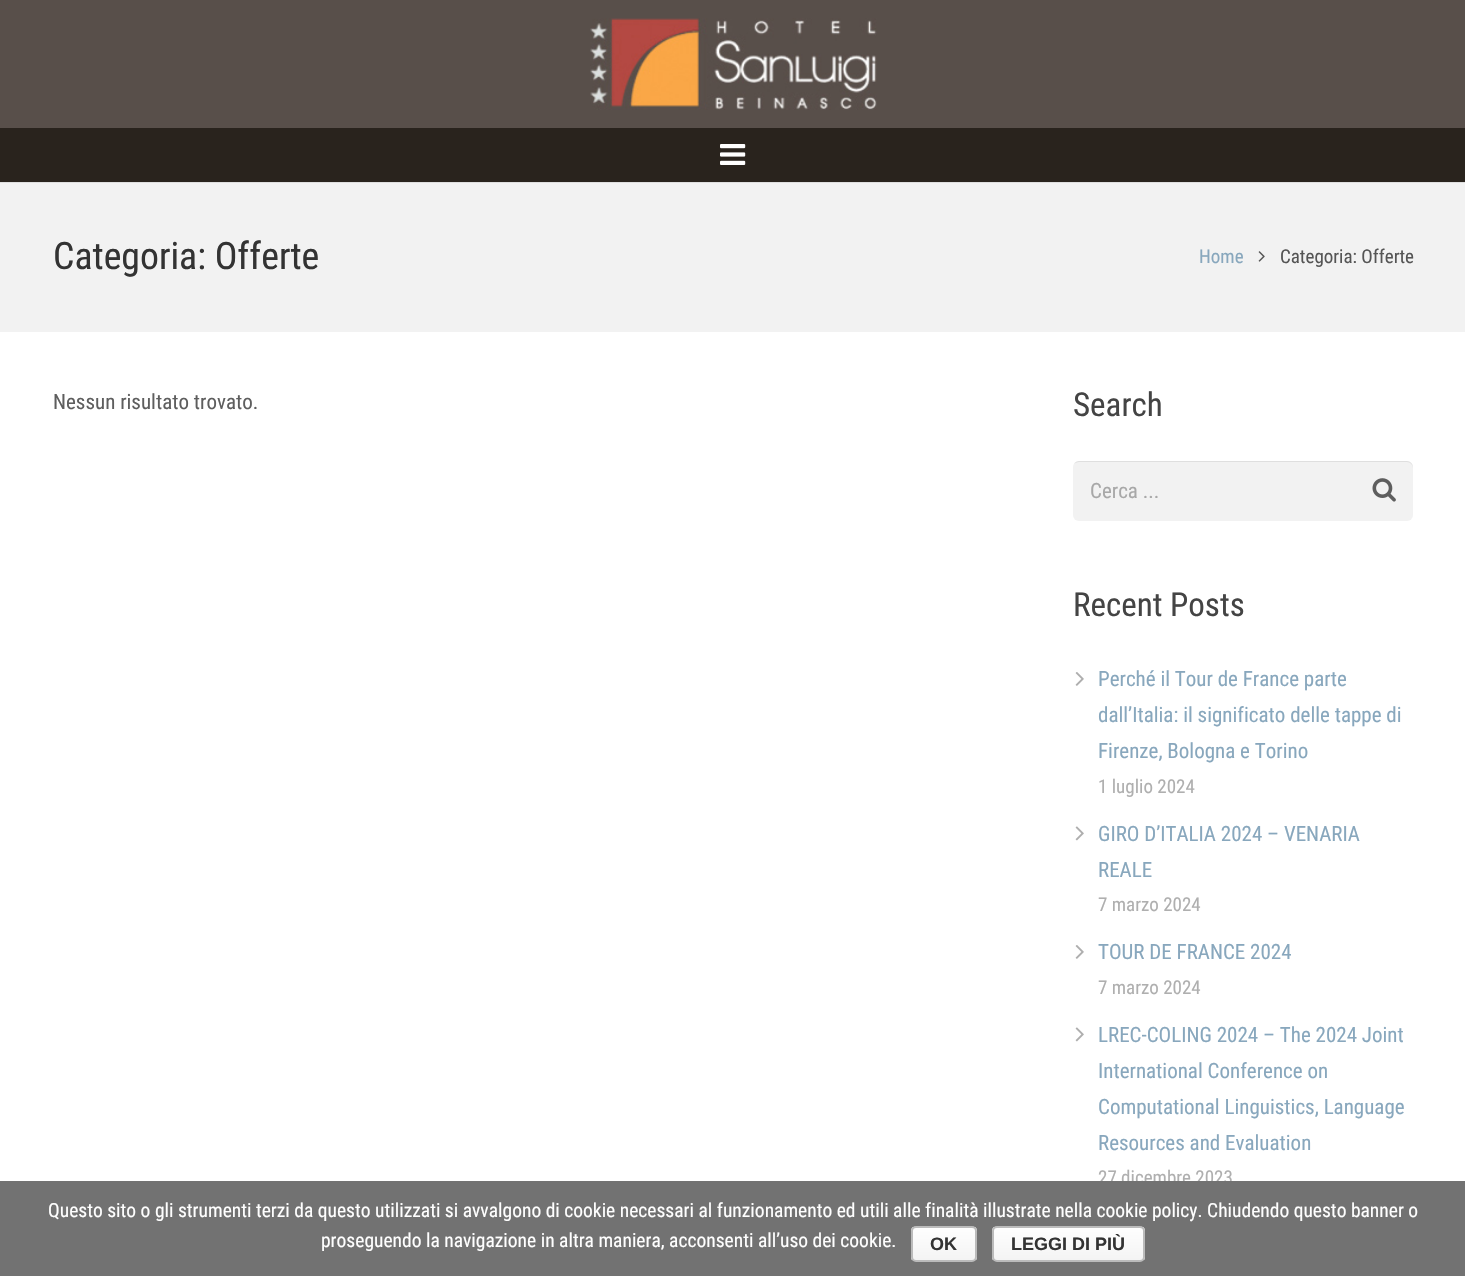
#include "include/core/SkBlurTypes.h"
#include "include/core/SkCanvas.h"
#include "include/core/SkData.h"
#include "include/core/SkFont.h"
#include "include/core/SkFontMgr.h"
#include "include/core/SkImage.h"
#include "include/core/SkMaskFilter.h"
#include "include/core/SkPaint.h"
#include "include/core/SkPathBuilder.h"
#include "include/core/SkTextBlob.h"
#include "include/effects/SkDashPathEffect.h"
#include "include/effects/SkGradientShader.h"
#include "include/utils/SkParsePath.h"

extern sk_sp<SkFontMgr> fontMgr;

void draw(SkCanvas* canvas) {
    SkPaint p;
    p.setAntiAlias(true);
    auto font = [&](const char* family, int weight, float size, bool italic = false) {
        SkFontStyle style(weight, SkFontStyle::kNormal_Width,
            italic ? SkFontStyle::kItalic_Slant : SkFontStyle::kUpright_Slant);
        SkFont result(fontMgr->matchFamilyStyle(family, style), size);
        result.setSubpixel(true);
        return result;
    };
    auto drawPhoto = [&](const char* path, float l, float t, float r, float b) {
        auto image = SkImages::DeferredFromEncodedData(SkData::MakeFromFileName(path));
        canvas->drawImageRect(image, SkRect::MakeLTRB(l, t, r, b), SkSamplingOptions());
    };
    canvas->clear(0xFFFFFFFF);
    p.setColor(0xFF584F4A);
    canvas->drawRect(SkRect::MakeLTRB(0, 0, 1465, 128), p);
    drawPhoto("media/1.png", 590, 18, 877, 110);
    p.setColor(0xFFDFDFDF);
    canvas->drawPath(SkPathBuilder().moveTo(0, 182).lineTo(0, 183).lineTo(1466, 183).lineTo(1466, 129).lineTo(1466, 182).close().detach(), p);
    p.setColor(0xFF29231D);
    canvas->drawRect(SkRect::MakeLTRB(0, 128, 1465, 182), p);
    drawPhoto("media/2.png", 720, 144, 746, 165);
    p.setColor(0xFFF2F2F2);
    canvas->drawRect(SkRect::MakeLTRB(0, 183, 1465, 332), p);
    auto font1 = font("Roboto Condensed", 400, 37.75f);
    p.setColor(0xFF333333);
    canvas->drawString("Categoria: Offerte", 53, 269, font1, p);
    auto font2 = font("Roboto Condensed", 400, 19);
    p.setColor(0xFF88A7BD);
    canvas->drawString("Home", 1199, 263, font2, p);
    drawPhoto("media/3.png", 1258, 251, 1265, 262);
    p.setColor(0xFF555555);
    canvas->drawString("Categoria: Offerte", 1280, 263, font2, p);
    auto font3 = font("Roboto Condensed", 400, 21);
    p.setColor(0xFF5E5E5E);
    canvas->drawString("Nessun risultato trovato.", 53, 409, font3, p);
    auto font4 = font("Roboto Condensed", 400, 33);
    p.setColor(0xFF444444);
    canvas->drawString("Search", 1073, 416, font4, p);
    p.setColor(0xFFF2F2F2);
    canvas->drawRoundRect(SkRect::MakeLTRB(1073, 461, 1413, 521), 6, 6, p);
    p.setColor(0x14000000);
    canvas->drawPath(SkPathBuilder().moveTo(1079, 462).lineTo(1407, 462).cubicTo(1410, 462, 1413, 465, 1413, 468).lineTo(1413, 467).cubicTo(1413, 464, 1410, 461, 1407, 461).lineTo(1079, 461).cubicTo(1077, 461, 1075, 462, 1074, 464).cubicTo(1075, 463, 1077, 462, 1079, 462).close().detach(), p);
    p.setColor(0xFFA8A8A8);
    canvas->drawString("Cerca ...", 1090, 498, font3, p);
    drawPhoto("media/4.png", 1372, 478, 1396, 502);
    p.setColor(0xFF444444);
    canvas->drawString("Recent Posts", 1073, 616, font4, p);
    drawPhoto("media/5.png", 1075, 672, 1084, 686);
    p.setColor(0xFF88A7BD);
    {
        const struct { const char* s; float x, y; } items[] = {
            {"Perché il Tour de France parte", 1098, 686},
            {"dall’Italia: il significato delle tappe di", 1098, 722},
            {"Firenze, Bologna e Torino", 1098, 758},
        };
        for (auto [s, x, y] : items) {
            canvas->drawString(s, x, y, font3, p);
        }
    }
    p.setColor(0xFFAFAFAF);
    canvas->drawString("1 luglio 2024", 1098, 793, font2, p);
    drawPhoto("media/6.png", 1075, 826, 1084, 841);
    p.setColor(0xFF88A7BD);
    canvas->drawString("GIRO D’ITALIA 2024 – VENARIA", 1098, 841, font3, p);
    canvas->drawString("REALE", 1098, 877, font3, p);
    p.setColor(0xFFAFAFAF);
    canvas->drawString("7 marzo 2024", 1098, 911, font2, p);
    drawPhoto("media/5.png", 1075, 945, 1084, 959);
    p.setColor(0xFF88A7BD);
    canvas->drawString("TOUR DE FRANCE 2024", 1098, 959, font3, p);
    p.setColor(0xFFAFAFAF);
    canvas->drawString("7 marzo 2024", 1098, 994, font2, p);
    drawPhoto("media/6.png", 1075, 1027, 1084, 1042);
    p.setColor(0xFF88A7BD);
    {
        const struct { const char* s; float x, y; } items[] = {
            {"LREC-COLING 2024 – The 2024 Joint", 1098, 1042},
            {"International Conference on", 1098, 1078},
            {"Computational Linguistics, Language", 1098, 1114},
            {"Resources and Evaluation", 1098, 1150},
        };
        for (auto [s, x, y] : items) {
            canvas->drawString(s, x, y, font3, p);
        }
    }
    p.setColor(0xFFAFAFAF);
    canvas->drawString("27 dicembre 2023", 1098, 1184, font2, p);
    p.setColor(0xFF727272);
    canvas->drawRect(SkRect::MakeLTRB(0, 1181, 1465, 1276), p);
    auto font5 = font("Roboto Condensed", 400, 19.5f);
    p.setColor(0xFFFFFFFF);
    canvas->drawString("Questo sito o gli strumenti terzi da questo utilizzati si avvalgono di cookie necessari al funzionamento ed utili alle finalità illustrate nella cookie policy. Chiudendo questo banner o", 48, 1217, font5, p);
    canvas->drawString("proseguendo la navigazione in altra maniera, acconsenti all’uso dei cookie.", 321, 1247, font5, p);
    canvas->save();
    canvas->clipPath(SkPathBuilder().moveTo(916, 1226).lineTo(972, 1226).cubicTo(975, 1226, 977, 1228, 977, 1231).lineTo(977, 1257).cubicTo(977, 1260, 975, 1262, 972, 1262).lineTo(916, 1262).cubicTo(913, 1262, 911, 1260, 911, 1257).lineTo(911, 1231).cubicTo(911, 1228, 913, 1226, 916, 1226).close().detach(), true);
    {
        const SkColor colors[] = {0xFFFEFEFE, 0xFFF4F4F4};
        const float stops[] = {0, 1};
        const SkPoint ends[] = {{944, 1227}, {944, 1260}};
        p.setShader(SkGradientShader::MakeLinear(ends, colors, stops, 2, SkTileMode::kClamp));
        p.setAlpha(255);
    }
    canvas->drawRect(SkRect::MakeLTRB(911, 1227, 977, 1260), p);
    canvas->restore();
    p.setStyle(SkPaint::kStroke_Style);
    p.setStrokeWidth(2);
    p.setShader(nullptr);
    p.setColor(0xFFBBBBBB);
    canvas->drawRoundRect(SkRect::MakeLTRB(912, 1227, 976, 1261), 4, 4, p);
    auto font6 = font("Liberation Sans", 700, 18);
    p.setStyle(SkPaint::kFill_Style);
    p.setColor(0xFF333333);
    canvas->drawString("OK", 930, 1250, font6, p);
    canvas->save();
    canvas->clipPath(SkPathBuilder().moveTo(997, 1226).lineTo(1140, 1226).cubicTo(1143, 1226, 1145, 1228, 1145, 1231).lineTo(1145, 1257).cubicTo(1145, 1260, 1143, 1262, 1140, 1262).lineTo(997, 1262).cubicTo(994, 1262, 992, 1260, 992, 1257).lineTo(992, 1231).cubicTo(992, 1228, 994, 1226, 997, 1226).close().detach(), true);
    {
        const SkColor colors[] = {0xFFFEFEFE, 0xFFF4F4F4};
        const float stops[] = {0, 1};
        const SkPoint ends[] = {{1068, 1227}, {1068, 1260}};
        p.setShader(SkGradientShader::MakeLinear(ends, colors, stops, 2, SkTileMode::kClamp));
        p.setAlpha(255);
    }
    canvas->drawRect(SkRect::MakeLTRB(992, 1227, 1145, 1260), p);
    canvas->restore();
    p.setStyle(SkPaint::kStroke_Style);
    p.setShader(nullptr);
    p.setColor(0xFFBBBBBB);
    canvas->drawRoundRect(SkRect::MakeLTRB(993, 1227, 1144, 1261), 4, 4, p);
    p.setStyle(SkPaint::kFill_Style);
    p.setColor(0xFF333333);
    canvas->drawString("LEGGI DI PIÙ", 1011, 1250, font6, p);
}
